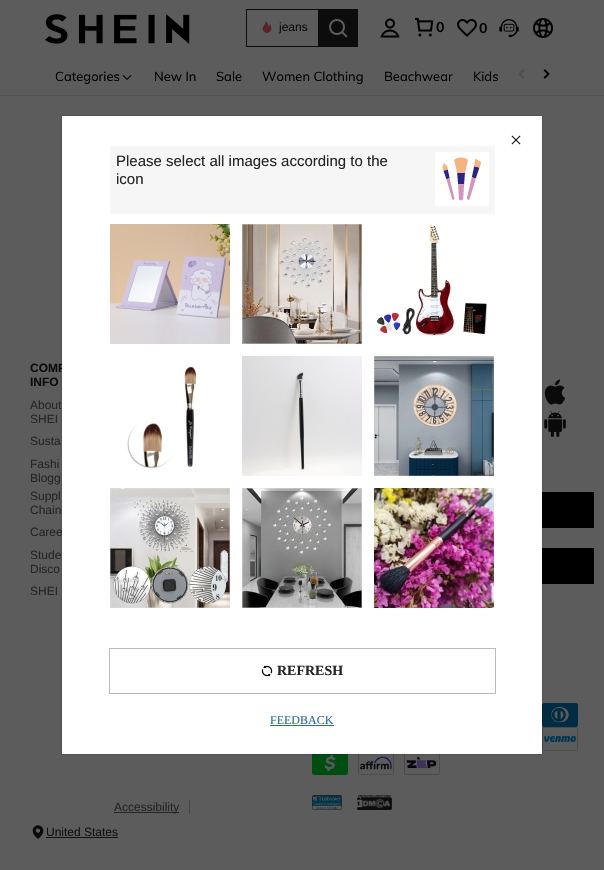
#include "include/core/SkBlurTypes.h"
#include "include/core/SkCanvas.h"
#include "include/core/SkData.h"
#include "include/core/SkFont.h"
#include "include/core/SkFontMgr.h"
#include "include/core/SkImage.h"
#include "include/core/SkMaskFilter.h"
#include "include/core/SkPaint.h"
#include "include/core/SkPathBuilder.h"
#include "include/core/SkTextBlob.h"
#include "include/effects/SkDashPathEffect.h"
#include "include/effects/SkGradientShader.h"
#include "include/utils/SkParsePath.h"

extern sk_sp<SkFontMgr> fontMgr;

void draw(SkCanvas* canvas) {
    SkPaint p;
    p.setAntiAlias(true);
    auto font = [&](const char* family, int weight, float size, bool italic = false) {
        SkFontStyle style(weight, SkFontStyle::kNormal_Width,
            italic ? SkFontStyle::kItalic_Slant : SkFontStyle::kUpright_Slant);
        SkFont result(fontMgr->matchFamilyStyle(family, style), size);
        result.setSubpixel(true);
        return result;
    };
    auto drawPhoto = [&](const char* path, float l, float t, float r, float b) {
        auto image = SkImages::DeferredFromEncodedData(SkData::MakeFromFileName(path));
        canvas->drawImageRect(image, SkRect::MakeLTRB(l, t, r, b), SkSamplingOptions());
    };
    canvas->clear(0xFF5C5C5C);
    drawPhoto("media/1.png", 45, 14, 190, 44);
    {
        const struct { float l, t, r, b; SkColor color; } items[] = {
            {246, 9, 318, 10, 0xFF0C0C0C},
            {246, 46, 318, 47, 0xFF0C0C0C},
            {246, 9, 247, 47, 0xFF0C0C0C},
        };
        for (auto [l, t, r, b, color] : items) {
            p.setColor(color);
            canvas->drawRect(SkRect::MakeLTRB(l, t, r, b), p);
        }
    }
    drawPhoto("media/2.png", 262, 20, 272, 33);
    auto font1 = font("Liberation Sans", 400, 12);
    canvas->drawString("jeans", 279, 31, font1, p);
    canvas->drawRect(SkRect::MakeLTRB(318, 9, 358, 47), p);
    drawPhoto("media/3.png", 329, 19, 348, 38);
    drawPhoto("media/4.png", 380, 18, 400, 38);
    drawPhoto("media/5.png", 415, 18, 434, 37);
    auto font2 = font("Muli", 700, 14);
    p.setColor(0xFF000000);
    canvas->drawString("0", 436, 32, font2, p);
    drawPhoto("media/6.png", 457, 19, 477, 37);
    canvas->drawString("0", 479, 33, font2, p);
    drawPhoto("media/7.png", 499, 19, 519, 38);
    drawPhoto("media/8.png", 533, 18, 553, 38);
    p.setColor(0xFF525252);
    canvas->drawRect(SkRect::MakeLTRB(0, 95, 604, 96), p);
    auto font3 = font("Muli", 400, 13);
    p.setColor(0xFF000000);
    canvas->drawString("Categories", 55, 81, font3, p);
    drawPhoto("media/9.png", 122, 75, 132, 80);
    {
        const struct { const char* s; float x, y; } items[] = {
            {"New In", 154, 81},
            {"Sale", 216, 81},
            {"Women Clothing", 262, 81},
            {"Beachwear", 384, 81},
            {"Kids", 473, 81},
        };
        for (auto [s, x, y] : items) {
            canvas->drawString(s, x, y, font3, p);
        }
    }
    drawPhoto("media/10.png", 518, 69, 525, 79);
    drawPhoto("media/11.png", 543, 69, 550, 79);
    auto font4 = font("Liberation Sans", 700, 12);
    p.setColor(0xFF0C0C0C);
    canvas->drawString("COMP", 30, 372, font4, p);
    canvas->drawString("INFO", 30, 386, font4, p);
    p.setColor(0xFF252525);
    {
        const struct { const char* s; float x, y; } items[] = {
            {"About", 30, 409},
            {"SHEI", 30, 423},
            {"Susta", 30, 445},
            {"Fashi", 30, 468},
            {"Blogg", 30, 482},
            {"Suppl", 30, 500},
            {"Chain", 30, 514},
            {"Caree", 30, 536},
            {"Stude", 30, 559},
            {"Disco", 30, 573},
            {"SHEI", 30, 595},
        };
        for (auto [s, x, y] : items) {
            canvas->drawString(s, x, y, font1, p);
        }
    }
    drawPhoto("media/12.png", 544, 379, 566, 405);
    drawPhoto("media/13.png", 544, 411, 566, 437);
    p.setColor(0xFF000000);
    canvas->drawRect(SkRect::MakeLTRB(542, 492, 594, 528), p);
    canvas->drawRect(SkRect::MakeLTRB(542, 548, 594, 584), p);
    drawPhoto("media/14.png", 542, 703, 578, 727);
    drawPhoto("media/15.png", 542, 727, 578, 751);
    drawPhoto("media/16.png", 312, 754, 348, 775);
    drawPhoto("media/17.png", 358, 754, 394, 775);
    drawPhoto("media/18.png", 404, 754, 440, 775);
    p.setColor(0xFF494949);
    canvas->drawRect(SkRect::MakeLTRB(189, 800, 190, 814), p);
    p.setColor(0xFF252525);
    canvas->drawRect(SkRect::MakeLTRB(114, 812, 179, 813), p);
    canvas->drawString("Accessibility", 114, 811, font1, p);
    drawPhoto("media/19.png", 32, 825, 44, 839);
    p.setColor(0xFF121212);
    canvas->drawString("United States", 46, 836, font1, p);
    canvas->drawRect(SkRect::MakeLTRB(46, 837, 118, 838), p);
    drawPhoto("media/20.png", 312, 795, 342, 810);
    drawPhoto("media/21.png", 357, 795, 392, 810);
    p.setColor(0x4D000000);
    p.setMaskFilter(SkMaskFilter::MakeBlur(kNormal_SkBlurStyle, 0.5f));
    canvas->drawRect(SkRect::MakeLTRB(62, 116, 542, 754), p);
    p.setMaskFilter(nullptr);
    p.setMaskFilter(SkMaskFilter::MakeBlur(kNormal_SkBlurStyle, 0.5f));
    canvas->drawRect(SkRect::MakeLTRB(62, 116, 542, 754), p);
    p.setMaskFilter(nullptr);
    p.setColor(0xFFFFFFFF);
    canvas->drawRect(SkRect::MakeLTRB(62, 116, 542, 754), p);
    drawPhoto("media/22.png", 511, 135, 521, 145);
    p.setColor(0xFFF6F6F6);
    canvas->drawRect(SkRect::MakeLTRB(110, 146, 495, 214), p);
    auto font5 = font("Liberation Sans", 400, 15);
    p.setColor(0xFF252525);
    canvas->drawString("Please select all images according to the", 116, 166, font5, p);
    canvas->drawString("icon", 116, 184, font5, p);
    p.setColor(0xFFFFFFFF);
    canvas->drawRect(SkRect::MakeLTRB(435, 152, 489, 206), p);
    drawPhoto("media/23.png", 442, 157, 482, 201);
    drawPhoto("media/24.png", 110, 224, 230, 344);
    drawPhoto("media/25.png", 242, 224, 362, 344);
    drawPhoto("media/26.png", 377, 224, 488, 336);
    drawPhoto("media/27.png", 127, 365, 198, 469);
    drawPhoto("media/28.png", 242, 356, 362, 476);
    drawPhoto("media/29.png", 374, 356, 494, 476);
    drawPhoto("media/30.png", 110, 488, 230, 608);
    drawPhoto("media/31.png", 242, 488, 362, 608);
    drawPhoto("media/32.png", 374, 488, 494, 608);
    p.setStyle(SkPaint::kStroke_Style);
    p.setStrokeWidth(1);
    p.setColor(0xFFBBBBBB);
    canvas->drawRect(SkRect::MakeLTRB(109.5f, 648.5f, 495.5f, 693.5f), p);
    drawPhoto("media/33.png", 261, 665, 273, 677);
    auto font6 = font("Liberation Serif", 700, 14);
    p.setStyle(SkPaint::kFill_Style);
    p.setColor(0xFF252525);
    canvas->drawString("REFRESH", 277, 675, font6, p);
    auto font7 = font("Liberation Serif", 400, 12);
    p.setColor(0xFF2D68A8);
    canvas->drawString("FEEDBACK", 270, 724, font7, p);
    canvas->drawRect(SkRect::MakeLTRB(270, 725, 334, 726), p);
}
